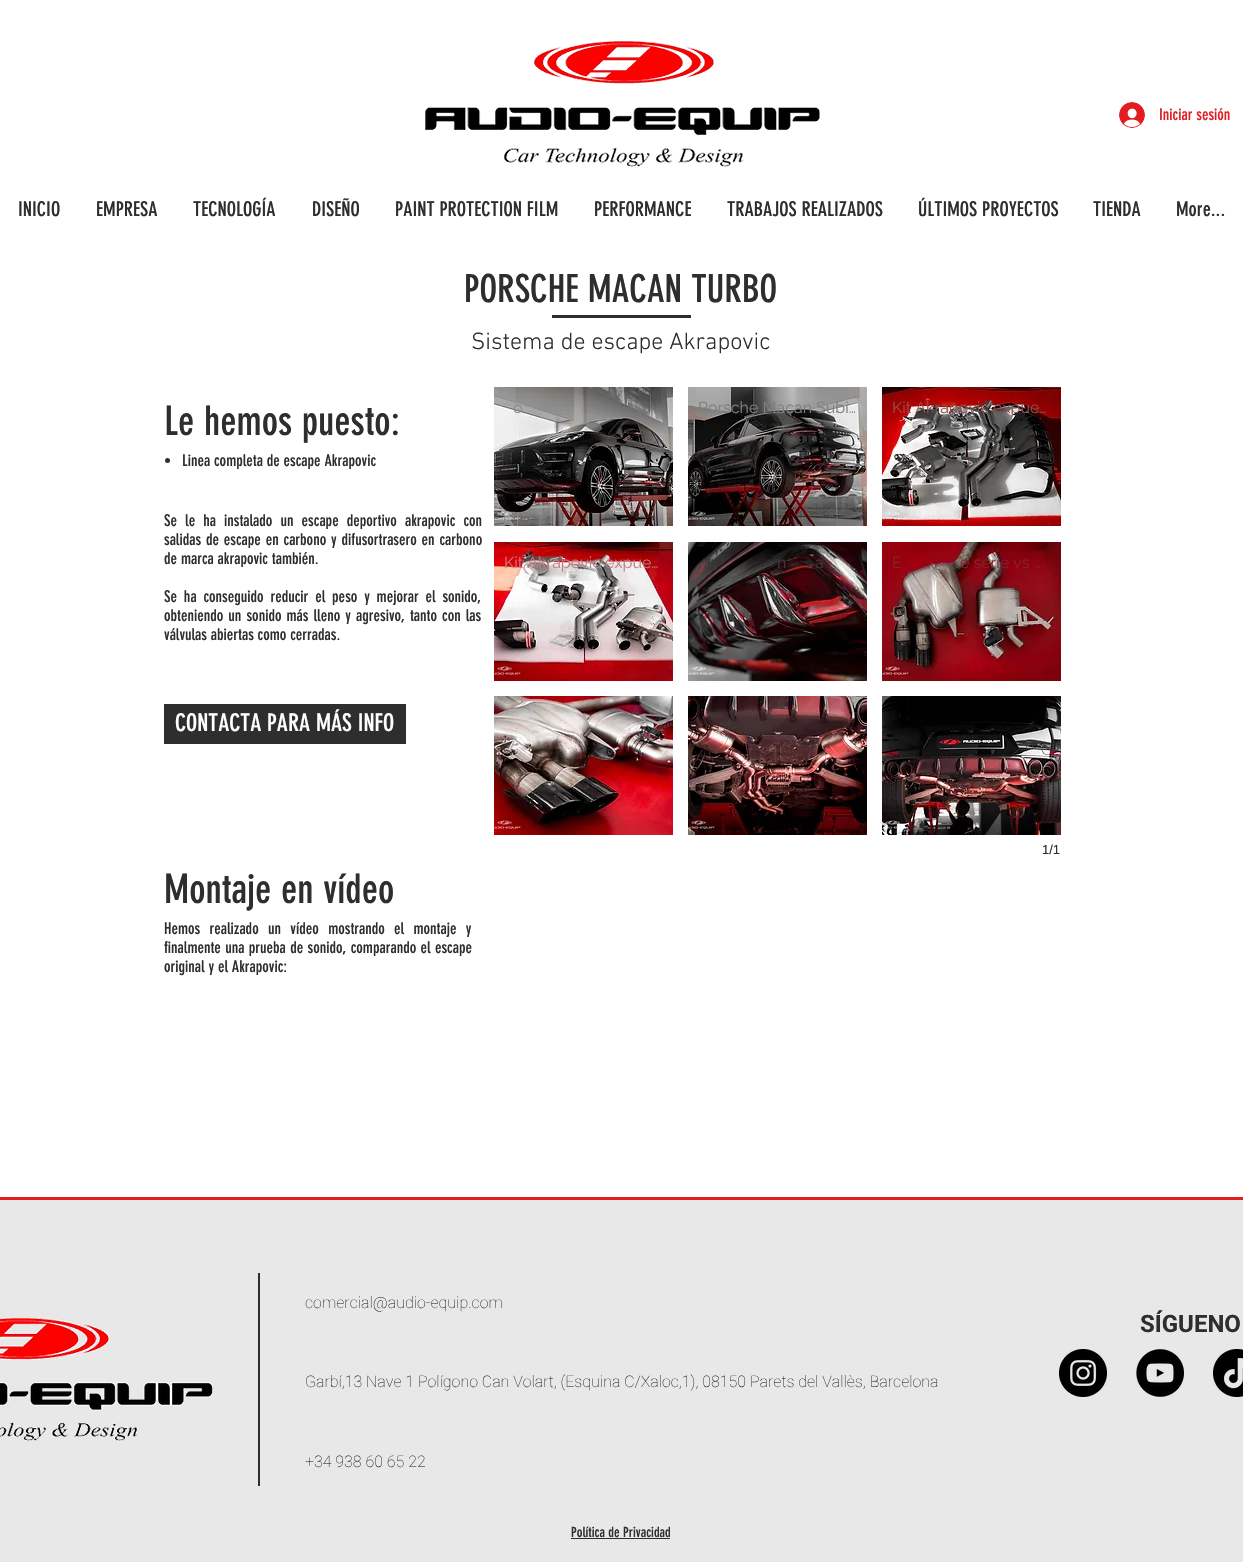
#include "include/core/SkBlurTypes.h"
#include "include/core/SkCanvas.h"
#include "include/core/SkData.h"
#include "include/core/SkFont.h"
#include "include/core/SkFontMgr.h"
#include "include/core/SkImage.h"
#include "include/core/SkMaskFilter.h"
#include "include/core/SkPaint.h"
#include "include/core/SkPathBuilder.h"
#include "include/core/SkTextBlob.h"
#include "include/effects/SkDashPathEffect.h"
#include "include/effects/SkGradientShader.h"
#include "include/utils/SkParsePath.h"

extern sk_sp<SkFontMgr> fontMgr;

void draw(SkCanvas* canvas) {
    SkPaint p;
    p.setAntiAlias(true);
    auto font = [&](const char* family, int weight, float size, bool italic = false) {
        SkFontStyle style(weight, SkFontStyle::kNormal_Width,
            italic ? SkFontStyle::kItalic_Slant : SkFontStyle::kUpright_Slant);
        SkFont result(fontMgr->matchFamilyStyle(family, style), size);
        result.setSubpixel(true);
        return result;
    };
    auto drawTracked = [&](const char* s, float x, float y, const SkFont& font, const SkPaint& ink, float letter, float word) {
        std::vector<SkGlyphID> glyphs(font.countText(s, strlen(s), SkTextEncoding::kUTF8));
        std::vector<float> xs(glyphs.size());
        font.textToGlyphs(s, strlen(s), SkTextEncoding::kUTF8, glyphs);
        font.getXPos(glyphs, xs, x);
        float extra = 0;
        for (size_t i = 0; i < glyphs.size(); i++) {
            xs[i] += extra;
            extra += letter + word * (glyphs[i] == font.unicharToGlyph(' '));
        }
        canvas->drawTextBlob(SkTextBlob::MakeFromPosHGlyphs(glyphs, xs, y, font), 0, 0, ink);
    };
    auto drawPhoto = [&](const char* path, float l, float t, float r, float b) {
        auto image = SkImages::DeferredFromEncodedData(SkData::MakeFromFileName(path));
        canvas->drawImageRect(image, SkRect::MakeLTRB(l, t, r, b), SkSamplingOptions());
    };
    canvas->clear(0xFFFFFFFF);
    drawPhoto("media/1.png", 425, 41, 820, 167);
    drawPhoto("media/2.png", 1119, 102, 1145, 128);
    auto font1 = font("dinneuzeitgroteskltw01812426", 400, 16);
    p.setColor(0xFFE21C21);
    canvas->drawString("Iniciar sesión", 1159, 120, font1, p);
    auto font2 = font("dinneuzeitgroteskltw01812426", 400, 20);
    p.setColor(0xFF2F2E2E);
    {
        const struct { const char* s; float x, y; } items[] = {
            {"INICIO", 18, 216},
            {"EMPRESA", 96, 216},
            {"TECNOLOGÍA", 193, 216},
            {"DISEÑO", 312, 216},
            {"PAINT PROTECTION FILM", 395, 216},
            {"PERFORMANCE", 594, 216},
            {"TRABAJOS REALIZADOS", 727, 216},
            {"ÚLTIMOS PROYECTOS", 918, 216},
            {"TIENDA", 1093, 216},
            {"More...", 1176, 216},
        };
        for (auto [s, x, y] : items) {
            canvas->drawString(s, x, y, font2, p);
        }
    }
    auto font3 = font("dinneuzeitgroteskltw01812426", 400, 38);
    canvas->drawString("PORSCHE MACAN TURBO", 464, 302, font3, p);
    canvas->drawRect(SkRect::MakeLTRB(552, 315, 691, 318), p);
    auto font4 = font("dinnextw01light", 300, 24);
    canvas->drawString("Sistema de escape Akrapovic", 471, 349, font4, p);
    auto font5 = font("dinneuzeitgroteskltw01812426", 400, 40);
    canvas->drawString("Le hemos puesto:", 164, 435, font5, p);
    drawPhoto("media/3.png", 494, 387, 673, 526);
    auto font6 = font("Raleway", 400, 16);
    p.setColor(0xFF8C8C8B);
    canvas->drawString("o", 513, 413, font6, p);
    drawPhoto("media/4.png", 688, 387, 867, 526);
    p.setColor(0xFF7F7F7F);
    canvas->drawString("Porsche Macan Subi…", 698, 413, font6, p);
    drawPhoto("media/5.png", 882, 387, 1061, 526);
    p.setColor(0xFF8D4F4D);
    canvas->drawString("Kit Akrapovic expue…", 892, 413, font6, p);
    drawPhoto("media/6.png", 494, 542, 673, 681);
    p.setColor(0xFFC37C7E);
    canvas->drawString("Kit Akrapovic expue…", 504, 568, font6, p);
    drawPhoto("media/7.png", 688, 542, 867, 681);
    p.setColor(0xFF453536);
    canvas->drawString("n", 777, 568, font6, p);
    canvas->drawString("a", 815, 568, font6, p);
    drawPhoto("media/8.png", 882, 542, 1061, 681);
    p.setColor(0xFF882029);
    canvas->drawString("E", 892, 568, font6, p);
    canvas->drawString("e serie vs …", 960, 568, font6, p);
    drawPhoto("media/9.png", 494, 696, 673, 835);
    drawPhoto("media/10.png", 688, 696, 867, 835);
    drawPhoto("media/11.png", 882, 696, 1061, 835);
    auto font7 = font("Liberation Sans", 400, 13);
    p.setColor(0xFF2F2E2E);
    canvas->drawString("1/1", 1042, 854, font7, p);
    canvas->drawCircle(167.5f, 460.5f, 2.5f, p);
    canvas->drawString("Linea completa de escape Akrapovic", 182, 466, font1, p);
    drawTracked("Se le ha instalado un escape deportivo akrapovic con", 164, 526, font1, p, 0, 4.25f);
    drawTracked("salidas de escape en carbono y difusortrasero en carbono", 164, 545, font1, p, 0, 1);
    canvas->drawString("de marca akrapovic también.", 164, 564, font1, p);
    drawTracked("Se ha conseguido reducir el peso y mejorar el sonido,", 164, 602, font1, p, 0, 3);
    drawTracked("obteniendo un sonido más lleno y agresivo, tanto con las", 164, 621, font1, p, 0, 1.25f);
    canvas->drawString("válvulas abiertas como cerradas.", 164, 640, font1, p);
    canvas->drawRect(SkRect::MakeLTRB(164, 704, 406, 744), p);
    auto font8 = font("dinneuzeitgroteskltw01812426", 400, 24);
    p.setColor(0xFFFFFFFF);
    canvas->drawString("CONTACTA PARA MÁS INFO", 175, 731, font8, p);
    p.setColor(0xFF2F2E2E);
    canvas->drawString("Montaje en vídeo", 164, 903, font5, p);
    drawTracked("Hemos realizado un vídeo mostrando el montaje y", 164, 934, font1, p, 0, 5.5f);
    drawTracked("finalmente una prueba de sonido, comparando el escape", 164, 953, font1, p, 0, 0.5f);
    canvas->drawString("original y el Akrapovic:", 164, 972, font1, p);
    {
        const struct { float l, t, r, b; SkColor color; } items[] = {
            {0, 1200, 1243, 1562, 0xFFE8E8E8},
            {0, 1197, 1243, 1200, 0xFFE21C21},
            {258, 1273, 260, 1486, 0xFF2F2E2E},
        };
        for (auto [l, t, r, b, color] : items) {
            p.setColor(color);
            canvas->drawRect(SkRect::MakeLTRB(l, t, r, b), p);
        }
    }
    auto font9 = font("Roboto", 100, 16);
    canvas->drawString("comercial@audio-equip.com", 305, 1308, font9, p);
    drawPhoto("media/12.png", 0, 1317, 213, 1441);
    auto font10 = font("Roboto", 700, 24);
    canvas->drawString("SÍGUENO", 1140, 1332, font10, p);
    canvas->drawString("Garbí,13 Nave 1 Polígono Can Volart, (Esquina C/Xaloc,1), 08150 Parets del Vallès, Barcelona", 305, 1387, font9, p);
    drawPhoto("media/13.png", 1059, 1349, 1107, 1397);
    drawPhoto("media/14.png", 1136, 1349, 1184, 1397);
    drawPhoto("media/15.png", 1213, 1349, 1243, 1397);
    canvas->drawString("+34 938 60 65 22", 305, 1467, font9, p);
    auto font11 = font("dinneuzeitgroteskltw01812426", 400, 14);
    canvas->drawString("Política de Privacidad", 571, 1537, font11, p);
    canvas->drawRect(SkRect::MakeLTRB(571, 1538, 670, 1539), p);
}
